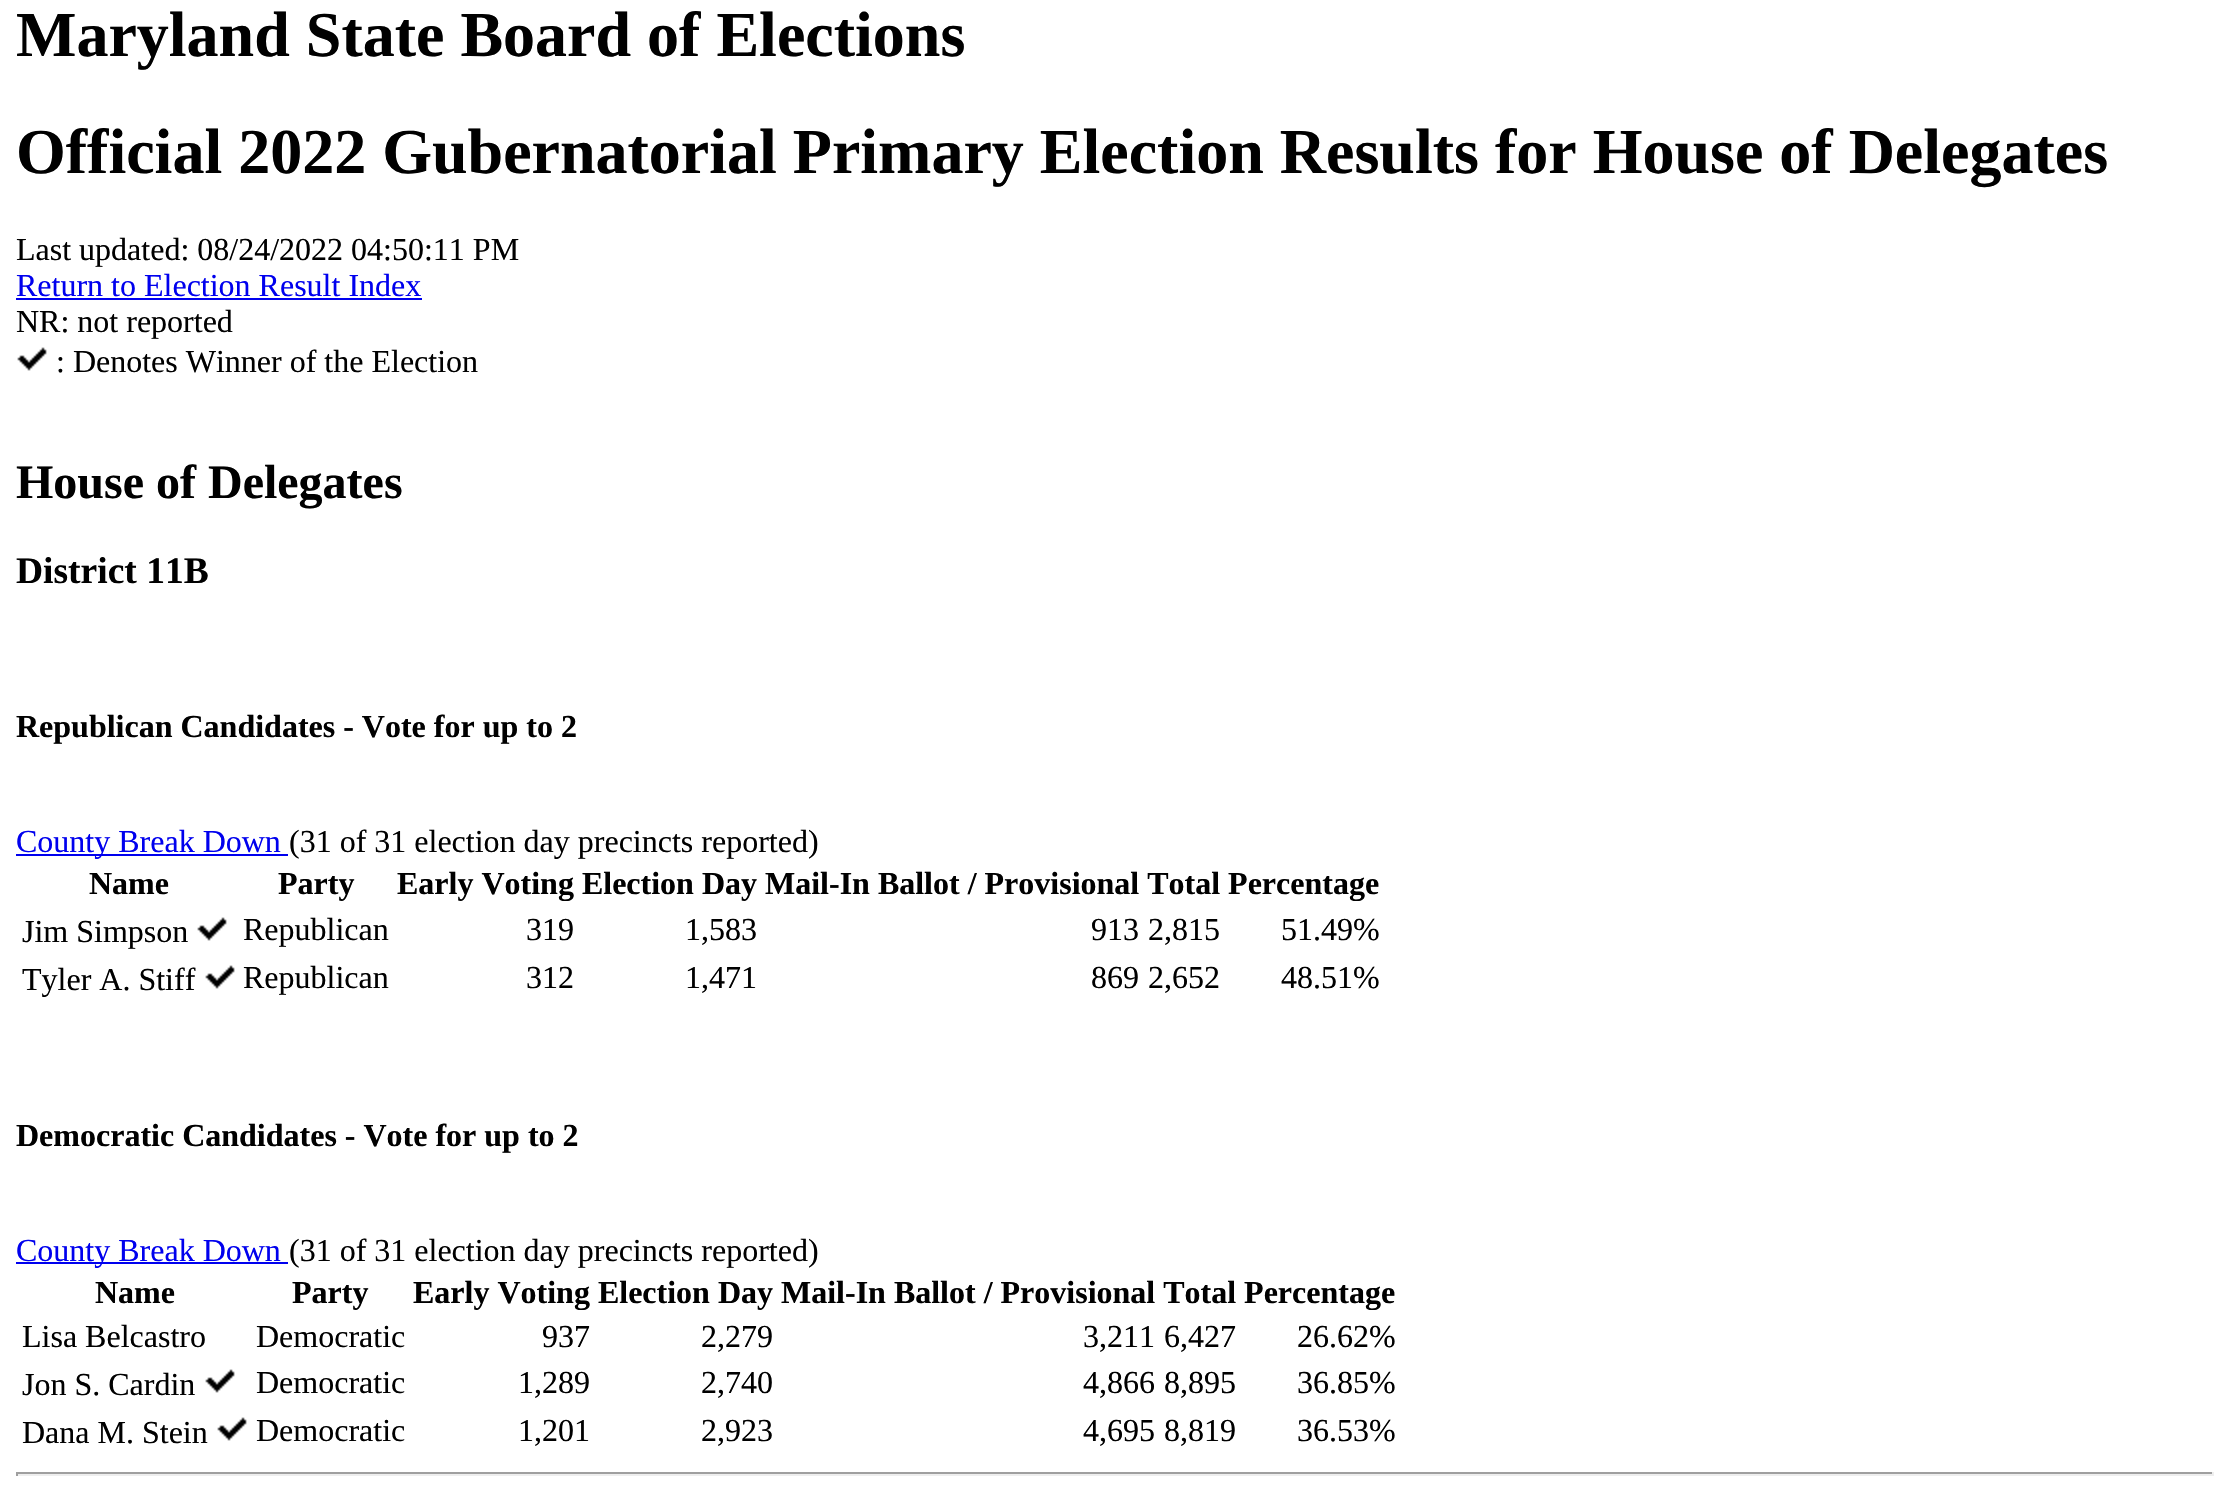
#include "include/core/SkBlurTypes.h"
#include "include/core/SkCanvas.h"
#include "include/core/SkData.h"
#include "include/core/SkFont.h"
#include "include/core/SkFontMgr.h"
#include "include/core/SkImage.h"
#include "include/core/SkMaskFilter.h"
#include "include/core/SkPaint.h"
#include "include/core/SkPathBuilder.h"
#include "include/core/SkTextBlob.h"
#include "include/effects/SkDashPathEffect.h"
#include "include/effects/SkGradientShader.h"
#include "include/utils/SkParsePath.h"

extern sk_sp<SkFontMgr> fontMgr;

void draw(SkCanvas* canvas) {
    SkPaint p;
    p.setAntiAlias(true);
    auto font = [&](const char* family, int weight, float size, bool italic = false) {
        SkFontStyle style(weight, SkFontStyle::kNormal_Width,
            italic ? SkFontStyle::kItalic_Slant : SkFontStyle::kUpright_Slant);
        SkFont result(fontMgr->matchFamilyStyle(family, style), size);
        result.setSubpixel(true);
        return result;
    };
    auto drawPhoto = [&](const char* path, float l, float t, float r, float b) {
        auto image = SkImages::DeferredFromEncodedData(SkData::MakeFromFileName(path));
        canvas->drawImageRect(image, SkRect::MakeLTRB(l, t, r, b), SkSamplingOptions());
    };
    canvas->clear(0xFFFFFFFF);
    auto font1 = font("Liberation Serif", 700, 64);
    p.setColor(0xFF000000);
    canvas->drawString("Maryland State Board of Elections", 16, 56, font1, p);
    canvas->drawString("Official 2022 Gubernatorial Primary Election Results for House of Delegates", 16, 173, font1, p);
    auto font2 = font("Liberation Serif", 400, 32);
    canvas->drawString("Last updated: 08/24/2022 04:50:11 PM", 16, 260, font2, p);
    p.setColor(0xFF0000EE);
    canvas->drawString("Return to Election Result Index", 16, 296, font2, p);
    canvas->drawRect(SkRect::MakeLTRB(16, 298, 422, 300), p);
    p.setColor(0xFF000000);
    canvas->drawString("NR: not reported", 16, 332, font2, p);
    drawPhoto("media/1.png", 17, 347, 47, 371);
    canvas->drawString(": Denotes Winner of the Election", 56, 372, font2, p);
    auto font3 = font("Liberation Serif", 700, 48);
    canvas->drawString("House of Delegates", 16, 498, font3, p);
    auto font4 = font("Liberation Serif", 700, 37.5f);
    canvas->drawString("District 11B", 16, 583, font4, p);
    auto font5 = font("Liberation Serif", 700, 32);
    canvas->drawString("Republican Candidates - Vote for up to 2", 16, 737, font5, p);
    p.setColor(0xFF0000EE);
    canvas->drawRect(SkRect::MakeLTRB(16, 854, 288, 856), p);
    canvas->drawString("County Break Down", 16, 852, font2, p);
    p.setColor(0xFF000000);
    canvas->drawString("(31 of 31 election day precincts reported)", 289, 852, font2, p);
    {
        const struct { const char* s; float x, y; } items[] = {
            {"Name", 89, 894},
            {"Party", 278, 894},
            {"Early Voting Election Day Mail-In Ballot / Provisional Total Percentage", 397, 894},
        };
        for (auto [s, x, y] : items) {
            canvas->drawString(s, x, y, font5, p);
        }
    }
    canvas->drawString("Jim Simpson", 22, 942, font2, p);
    drawPhoto("media/1.png", 197, 917, 227, 941);
    {
        const struct { const char* s; float x, y; } items[] = {
            {"Republican", 243, 940},
            {"319", 526, 940},
            {"1,583", 685, 940},
            {"913", 1091, 940},
            {"2,815", 1148, 940},
            {"51.49%", 1281, 940},
            {"Tyler A. Stiff", 22, 990},
        };
        for (auto [s, x, y] : items) {
            canvas->drawString(s, x, y, font2, p);
        }
    }
    drawPhoto("media/1.png", 205, 965, 235, 989);
    {
        const struct { const char* s; float x, y; } items[] = {
            {"Republican", 243, 988},
            {"312", 526, 988},
            {"1,471", 685, 988},
            {"869", 1091, 988},
            {"2,652", 1148, 988},
            {"48.51%", 1281, 988},
        };
        for (auto [s, x, y] : items) {
            canvas->drawString(s, x, y, font2, p);
        }
    }
    canvas->drawString("Democratic Candidates - Vote for up to 2", 16, 1146, font5, p);
    p.setColor(0xFF0000EE);
    canvas->drawRect(SkRect::MakeLTRB(16, 1262, 288, 1264), p);
    canvas->drawString("County Break Down", 16, 1261, font2, p);
    p.setColor(0xFF000000);
    canvas->drawString("(31 of 31 election day precincts reported)", 289, 1261, font2, p);
    {
        const struct { const char* s; float x, y; } items[] = {
            {"Name", 95, 1303},
            {"Party", 292, 1303},
            {"Early Voting Election Day Mail-In Ballot / Provisional Total Percentage", 413, 1303},
        };
        for (auto [s, x, y] : items) {
            canvas->drawString(s, x, y, font5, p);
        }
    }
    {
        const struct { const char* s; float x, y; } items[] = {
            {"Lisa Belcastro", 22, 1347},
            {"Democratic", 256, 1347},
            {"937", 542, 1347},
            {"2,279", 701, 1347},
            {"3,211", 1083, 1347},
            {"6,427", 1164, 1347},
            {"26.62%", 1297, 1347},
            {"Jon S. Cardin", 22, 1395},
        };
        for (auto [s, x, y] : items) {
            canvas->drawString(s, x, y, font2, p);
        }
    }
    drawPhoto("media/1.png", 205, 1369, 235, 1393);
    {
        const struct { const char* s; float x, y; } items[] = {
            {"Democratic", 256, 1393},
            {"1,289", 518, 1393},
            {"2,740", 701, 1393},
            {"4,866", 1083, 1393},
            {"8,895", 1164, 1393},
            {"36.85%", 1297, 1393},
            {"Dana M. Stein", 22, 1443},
        };
        for (auto [s, x, y] : items) {
            canvas->drawString(s, x, y, font2, p);
        }
    }
    drawPhoto("media/1.png", 217, 1417, 247, 1441);
    {
        const struct { const char* s; float x, y; } items[] = {
            {"Democratic", 256, 1441},
            {"1,201", 518, 1441},
            {"2,923", 701, 1441},
            {"4,695", 1083, 1441},
            {"8,819", 1164, 1441},
            {"36.53%", 1297, 1441},
        };
        for (auto [s, x, y] : items) {
            canvas->drawString(s, x, y, font2, p);
        }
    }
    {
        const struct { float l, t, r, b; SkColor color; } items[] = {
            {16, 1472, 2214, 1474, 0xFF9F9F9F},
            {2212, 1472, 2214, 1476, 0xFFEEEEEE},
            {16, 1474, 2214, 1476, 0xFFEEEEEE},
            {16, 1472, 18, 1476, 0xFF9F9F9F},
        };
        for (auto [l, t, r, b, color] : items) {
            p.setColor(color);
            canvas->drawRect(SkRect::MakeLTRB(l, t, r, b), p);
        }
    }
}
